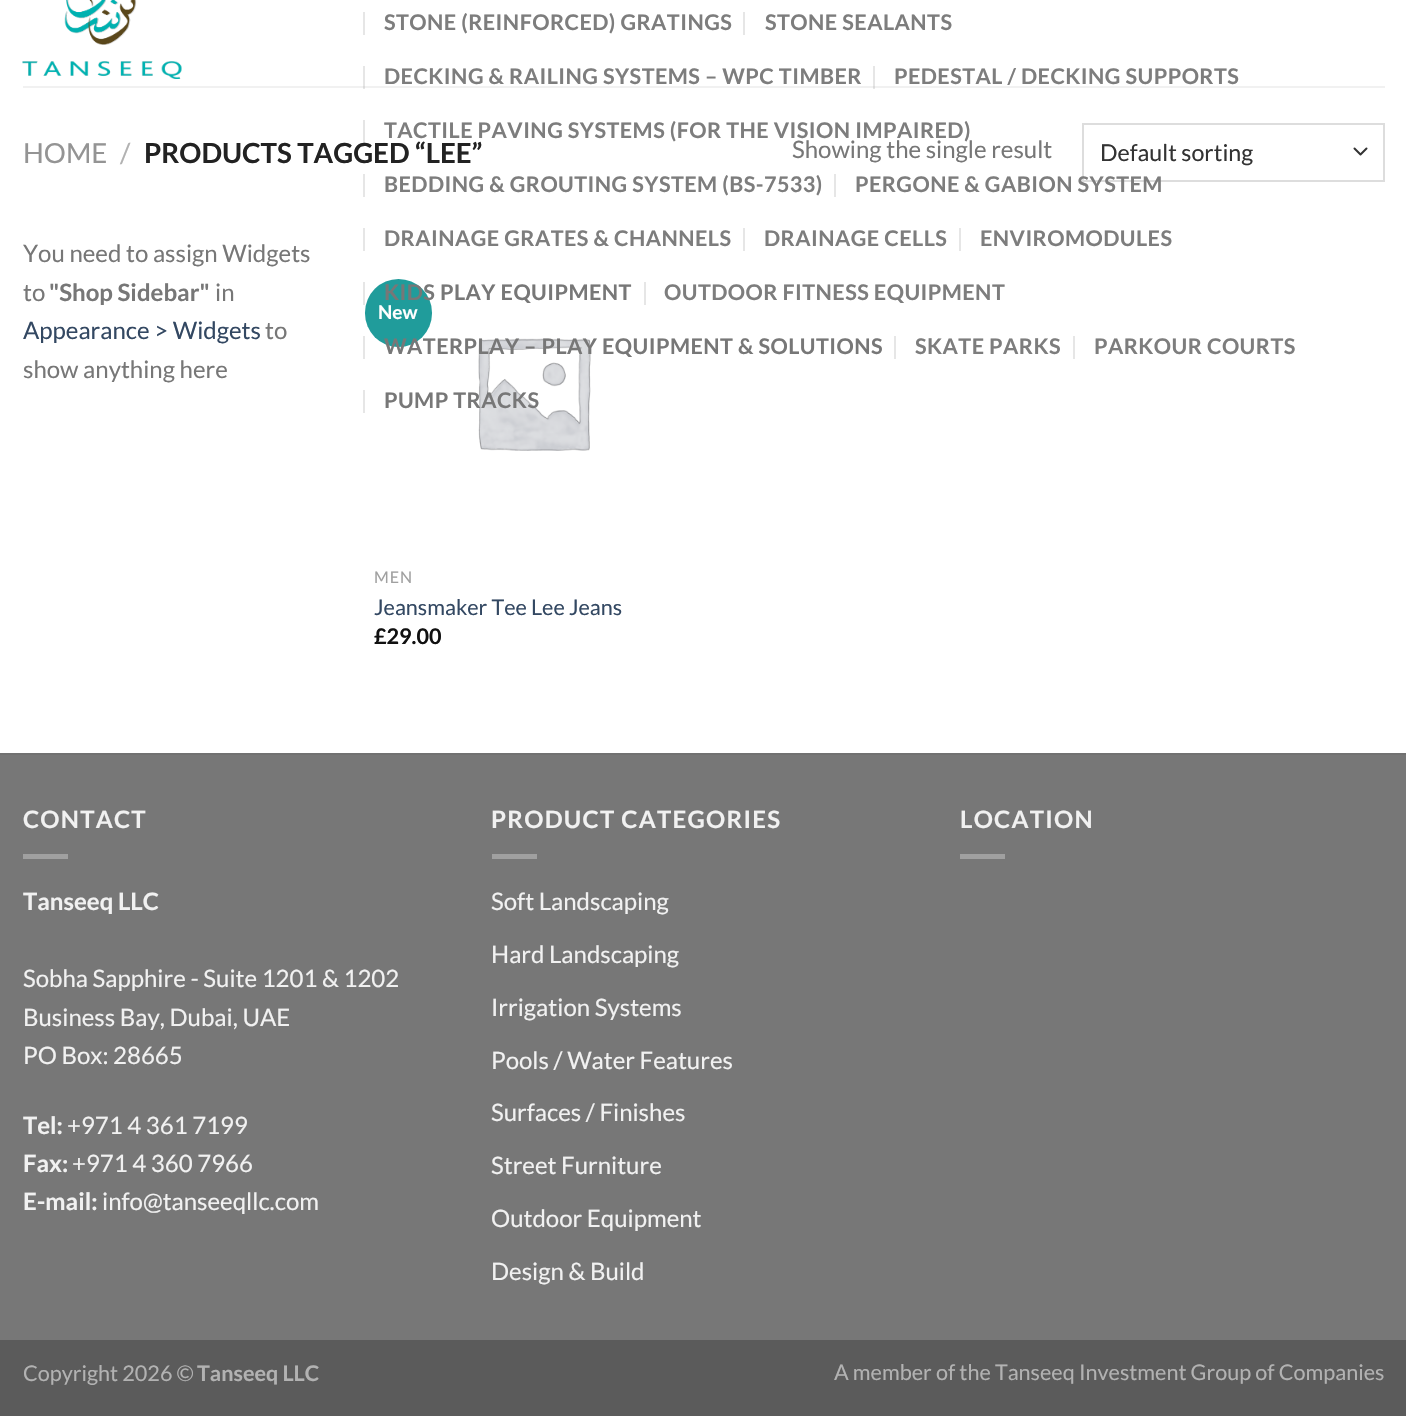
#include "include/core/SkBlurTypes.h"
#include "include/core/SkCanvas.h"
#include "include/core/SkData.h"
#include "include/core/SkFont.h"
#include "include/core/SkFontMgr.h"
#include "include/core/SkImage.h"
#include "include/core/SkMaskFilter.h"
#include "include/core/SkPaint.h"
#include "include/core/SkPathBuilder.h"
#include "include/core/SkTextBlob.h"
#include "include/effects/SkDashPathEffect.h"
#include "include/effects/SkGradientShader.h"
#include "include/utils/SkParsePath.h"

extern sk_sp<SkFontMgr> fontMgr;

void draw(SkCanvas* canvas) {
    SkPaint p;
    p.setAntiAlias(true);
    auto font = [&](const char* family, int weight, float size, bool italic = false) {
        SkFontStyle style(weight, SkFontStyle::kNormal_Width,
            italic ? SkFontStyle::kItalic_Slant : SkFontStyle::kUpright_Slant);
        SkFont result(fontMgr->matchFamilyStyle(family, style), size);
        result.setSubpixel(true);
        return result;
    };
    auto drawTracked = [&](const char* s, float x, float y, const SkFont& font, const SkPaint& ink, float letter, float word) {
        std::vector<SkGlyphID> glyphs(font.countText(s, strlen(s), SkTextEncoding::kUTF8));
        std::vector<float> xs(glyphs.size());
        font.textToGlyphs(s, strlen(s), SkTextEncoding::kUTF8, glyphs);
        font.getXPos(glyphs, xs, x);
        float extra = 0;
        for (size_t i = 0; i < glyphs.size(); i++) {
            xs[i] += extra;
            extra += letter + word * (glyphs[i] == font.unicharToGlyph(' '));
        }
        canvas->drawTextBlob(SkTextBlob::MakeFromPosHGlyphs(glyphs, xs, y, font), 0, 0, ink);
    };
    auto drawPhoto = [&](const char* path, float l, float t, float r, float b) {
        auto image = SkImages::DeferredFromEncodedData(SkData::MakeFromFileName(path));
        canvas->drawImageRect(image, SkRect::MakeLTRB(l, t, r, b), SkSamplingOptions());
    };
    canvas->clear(0xFFFFFFFF);
    p.setColor(0xFFF1F1F1);
    canvas->drawRect(SkRect::MakeLTRB(23, 86, 1385, 88), p);
    drawPhoto("media/1.png", 22, 0, 182, 79);
    p.setColor(0xFFE6E6E6);
    canvas->drawRect(SkRect::MakeLTRB(363, 12, 365, 35), p);
    auto font1 = font("Lato", 700, 21.6f);
    p.setColor(0xFF7D7D7D);
    drawTracked("STONE (REINFORCED) GRATINGS", 384, 30, font1, p, 0.45f, 0);
    p.setColor(0xFFE6E6E6);
    canvas->drawRect(SkRect::MakeLTRB(743, 12, 745, 35), p);
    p.setColor(0xFF7D7D7D);
    drawTracked("STONE SEALANTS", 765, 30, font1, p, 0.45f, 0);
    p.setColor(0xFFE6E6E6);
    canvas->drawRect(SkRect::MakeLTRB(363, 66, 365, 89), p);
    p.setColor(0xFFDBDBDB);
    canvas->drawRect(SkRect::MakeLTRB(363, 86, 365, 88), p);
    p.setColor(0xFF7D7D7D);
    drawTracked("DECKING & RAILING SYSTEMS – WPC TIMBER", 384, 84, font1, p, 0.45f, 0);
    p.setColor(0xFFE6E6E6);
    canvas->drawRect(SkRect::MakeLTRB(873, 66, 875, 89), p);
    p.setColor(0xFFDBDBDB);
    canvas->drawRect(SkRect::MakeLTRB(873, 86, 875, 88), p);
    p.setColor(0xFF7D7D7D);
    drawTracked("PEDESTAL / DECKING SUPPORTS", 894, 84, font1, p, 0.45f, 0);
    p.setColor(0x1A000000);
    canvas->drawRect(SkRect::MakeLTRB(363, 120, 365, 143), p);
    p.setColor(0xFF7D7D7D);
    drawTracked("TACTILE PAVING SYSTEMS (FOR THE VISION IMPAIRED)", 384, 138, font1, p, 0.45f, 0);
    p.setColor(0xFFE6E6E6);
    canvas->drawRect(SkRect::MakeLTRB(363, 174, 365, 197), p);
    p.setColor(0xFF7D7D7D);
    drawTracked("BEDDING & GROUTING SYSTEM (BS-7533)", 384, 192, font1, p, 0.45f, 0);
    p.setColor(0xFFE6E6E6);
    canvas->drawRect(SkRect::MakeLTRB(834, 174, 836, 197), p);
    p.setStyle(SkPaint::kStroke_Style);
    p.setStrokeWidth(2);
    p.setStrokeCap(SkPaint::kRound_Cap);
    p.setStrokeJoin(SkPaint::kRound_Join);
    p.setColor(0xFF333333);
    canvas->drawPath(SkPathBuilder().moveTo(1354.5f, 148.5f).lineTo(1360.5f, 154.5f).lineTo(1366.5f, 148.5f).detach(), p);
    p.setStrokeCap(SkPaint::kButt_Cap);
    p.setStrokeJoin(SkPaint::kMiter_Join);
    p.setColor(0xFFDDDDDD);
    canvas->drawRect(SkRect::MakeLTRB(1083, 124, 1384, 181), p);
    p.setStyle(SkPaint::kFill_Style);
    p.setColor(0xFF7D7D7D);
    drawTracked("PERGONE & GABION SYSTEM", 855, 192, font1, p, 0.45f, 0);
    p.setColor(0xFFE6E6E6);
    canvas->drawRect(SkRect::MakeLTRB(363, 228, 365, 251), p);
    p.setColor(0xFF7D7D7D);
    drawTracked("DRAINAGE GRATES & CHANNELS", 384, 246, font1, p, 0.45f, 0);
    p.setColor(0xFFE6E6E6);
    canvas->drawRect(SkRect::MakeLTRB(743, 228, 745, 251), p);
    p.setColor(0xFF7D7D7D);
    drawTracked("DRAINAGE CELLS", 764, 246, font1, p, 0.45f, 0);
    p.setColor(0xFFE6E6E6);
    canvas->drawRect(SkRect::MakeLTRB(959, 228, 961, 251), p);
    p.setColor(0xFF7D7D7D);
    drawTracked("ENVIROMODULES", 980, 246, font1, p, 0.45f, 0);
    p.setColor(0xFFE6E6E6);
    canvas->drawRect(SkRect::MakeLTRB(363, 282, 365, 305), p);
    p.setColor(0xFF209C9B);
    canvas->drawRoundRect(SkRect::MakeLTRB(365, 279, 432, 347), 33.5f, 33.5f, p);
    p.setColor(0xFF777777);
    drawTracked("KIDS PLAY EQUIPMENT", 384, 300, font1, p, 0.45f, 0);
    p.setColor(0xFFE6E6E6);
    canvas->drawRect(SkRect::MakeLTRB(644, 282, 646, 305), p);
    p.setColor(0xFF7D7D7D);
    drawTracked("OUTDOOR FITNESS EQUIPMENT", 664, 300, font1, p, 0.45f, 0);
    p.setColor(0xFFE6E6E6);
    canvas->drawRect(SkRect::MakeLTRB(363, 336, 365, 359), p);
    drawPhoto("media/2.png", 478, 338, 591, 451);
    p.setColor(0xFF777777);
    drawTracked("WATERPLAY – PLAY EQUIPMENT & SOLUTIONS", 384, 354, font1, p, 0.45f, 0);
    p.setColor(0xFFE6E6E6);
    canvas->drawRect(SkRect::MakeLTRB(894, 336, 896, 359), p);
    p.setColor(0xFF7D7D7D);
    drawTracked("SKATE PARKS", 915, 354, font1, p, 0.45f, 0);
    p.setColor(0xFFE6E6E6);
    canvas->drawRect(SkRect::MakeLTRB(1073, 336, 1075, 359), p);
    p.setColor(0xFF7D7D7D);
    drawTracked("PARKOUR COURTS", 1094, 354, font1, p, 0.45f, 0);
    p.setColor(0xFFE6E6E6);
    canvas->drawRect(SkRect::MakeLTRB(363, 390, 365, 413), p);
    p.setColor(0xFF777777);
    drawTracked("PUMP TRACKS", 384, 408, font1, p, 0.45f, 0);
    auto font2 = font("Lato", 400, 27.6f);
    p.setColor(0xFF949494);
    canvas->drawString("HOME", 23, 163, font2, p);
    p.setColor(0xFFB2B2B2);
    canvas->drawString("/", 120, 163, font2, p);
    auto font3 = font("Lato", 700, 27.6f);
    p.setColor(0xFF222222);
    canvas->drawString("PRODUCTS TAGGED “LEE”", 144, 163, font3, p);
    auto font4 = font("Lato", 400, 24);
    p.setColor(0xFF777777);
    canvas->drawString("Showing the single result", 792, 158, font4, p);
    auto font5 = font("Lato", 400, 23.25f);
    p.setColor(0xFF333333);
    canvas->drawString("Default sorting", 1100, 161, font5, p);
    p.setColor(0xFF777777);
    canvas->drawString("You need to assign Widgets", 23, 262, font4, p);
    canvas->drawString("to", 23, 301, font4, p);
    auto font6 = font("Lato", 700, 24);
    canvas->drawString("\"Shop Sidebar\"", 49, 301, font6, p);
    canvas->drawString("in", 215, 301, font4, p);
    p.setColor(0xFF334862);
    canvas->drawString("Appearance > Widgets", 23, 339, font4, p);
    p.setColor(0xFF777777);
    canvas->drawString("to", 265, 339, font4, p);
    canvas->drawString("show anything here", 23, 378, font4, p);
    auto font7 = font("Lato", 700, 19);
    p.setColor(0xFFFFFFFF);
    canvas->drawString("New", 378, 319, font7, p);
    auto font8 = font("Lato", 400, 16);
    p.setColor(0xFFA0A0A0);
    drawTracked("MEN", 374, 583, font8, p, 1, 0);
    auto font9 = font("Lato", 400, 21.6f);
    p.setColor(0xFF334862);
    canvas->drawString("Jeansmaker Tee Lee Jeans", 374, 615, font9, p);
    p.setColor(0xFF111111);
    canvas->drawString("£29.00", 374, 644, font1, p);
    p.setColor(0xFF777777);
    canvas->drawRect(SkRect::MakeLTRB(0, 755, 1406, 1340), p);
    p.setColor(0xFF717171);
    canvas->drawRect(SkRect::MakeLTRB(0, 753, 1406, 755), p);
    p.setColor(0xFFF1F1F1);
    drawTracked("CONTACT", 23, 828, font6, p, 1.25f, 0);
    p.setColor(0xFFA0A0A0);
    canvas->drawRect(SkRect::MakeLTRB(23, 854, 68, 859), p);
    p.setColor(0xFFF1F1F1);
    canvas->drawString("Tanseeq LLC", 23, 910, font6, p);
    {
        const struct { const char* s; float x, y; } items[] = {
            {"Sobha Sapphire - Suite 1201 & 1202", 23, 987},
            {"Business Bay, Dubai, UAE", 23, 1026},
            {"PO Box: 28665", 23, 1064},
        };
        for (auto [s, x, y] : items) {
            canvas->drawString(s, x, y, font4, p);
        }
    }
    canvas->drawString("Tel:", 23, 1134, font6, p);
    canvas->drawString("+971 4 361 7199", 67, 1134, font4, p);
    canvas->drawString("Fax:", 23, 1172, font6, p);
    canvas->drawString("+971 4 360 7966", 72, 1172, font4, p);
    canvas->drawString("E-mail:", 23, 1210, font6, p);
    canvas->drawString("info@tanseeqllc.com", 102, 1210, font4, p);
    drawTracked("PRODUCT CATEGORIES", 491, 828, font6, p, 1.25f, 0);
    p.setColor(0xFFA0A0A0);
    canvas->drawRect(SkRect::MakeLTRB(492, 854, 537, 859), p);
    p.setColor(0xFFF1F1F1);
    {
        const struct { const char* s; float x, y; } items[] = {
            {"Soft Landscaping", 491, 910},
            {"Hard Landscaping", 491, 963},
            {"Irrigation Systems", 491, 1016},
            {"Pools / Water Features", 491, 1069},
            {"Surfaces / Finishes", 491, 1121},
            {"Street Furniture", 491, 1174},
            {"Outdoor Equipment", 491, 1227},
            {"Design & Build", 491, 1280},
        };
        for (auto [s, x, y] : items) {
            canvas->drawString(s, x, y, font4, p);
        }
    }
    drawTracked("LOCATION", 960, 828, font6, p, 1.25f, 0);
    p.setColor(0xFFA0A0A0);
    canvas->drawRect(SkRect::MakeLTRB(960, 854, 1005, 859), p);
    p.setColor(0xFF5B5B5B);
    canvas->drawRect(SkRect::MakeLTRB(0, 1340, 1406, 1416), p);
    p.setColor(0xFFB2B2B2);
    canvas->drawString("Copyright 2026 ©", 23, 1381, font9, p);
    canvas->drawString("Tanseeq LLC", 197, 1381, font1, p);
    canvas->drawString("A member of the Tanseeq Investment Group of Companies", 834, 1380, font9, p);
}
